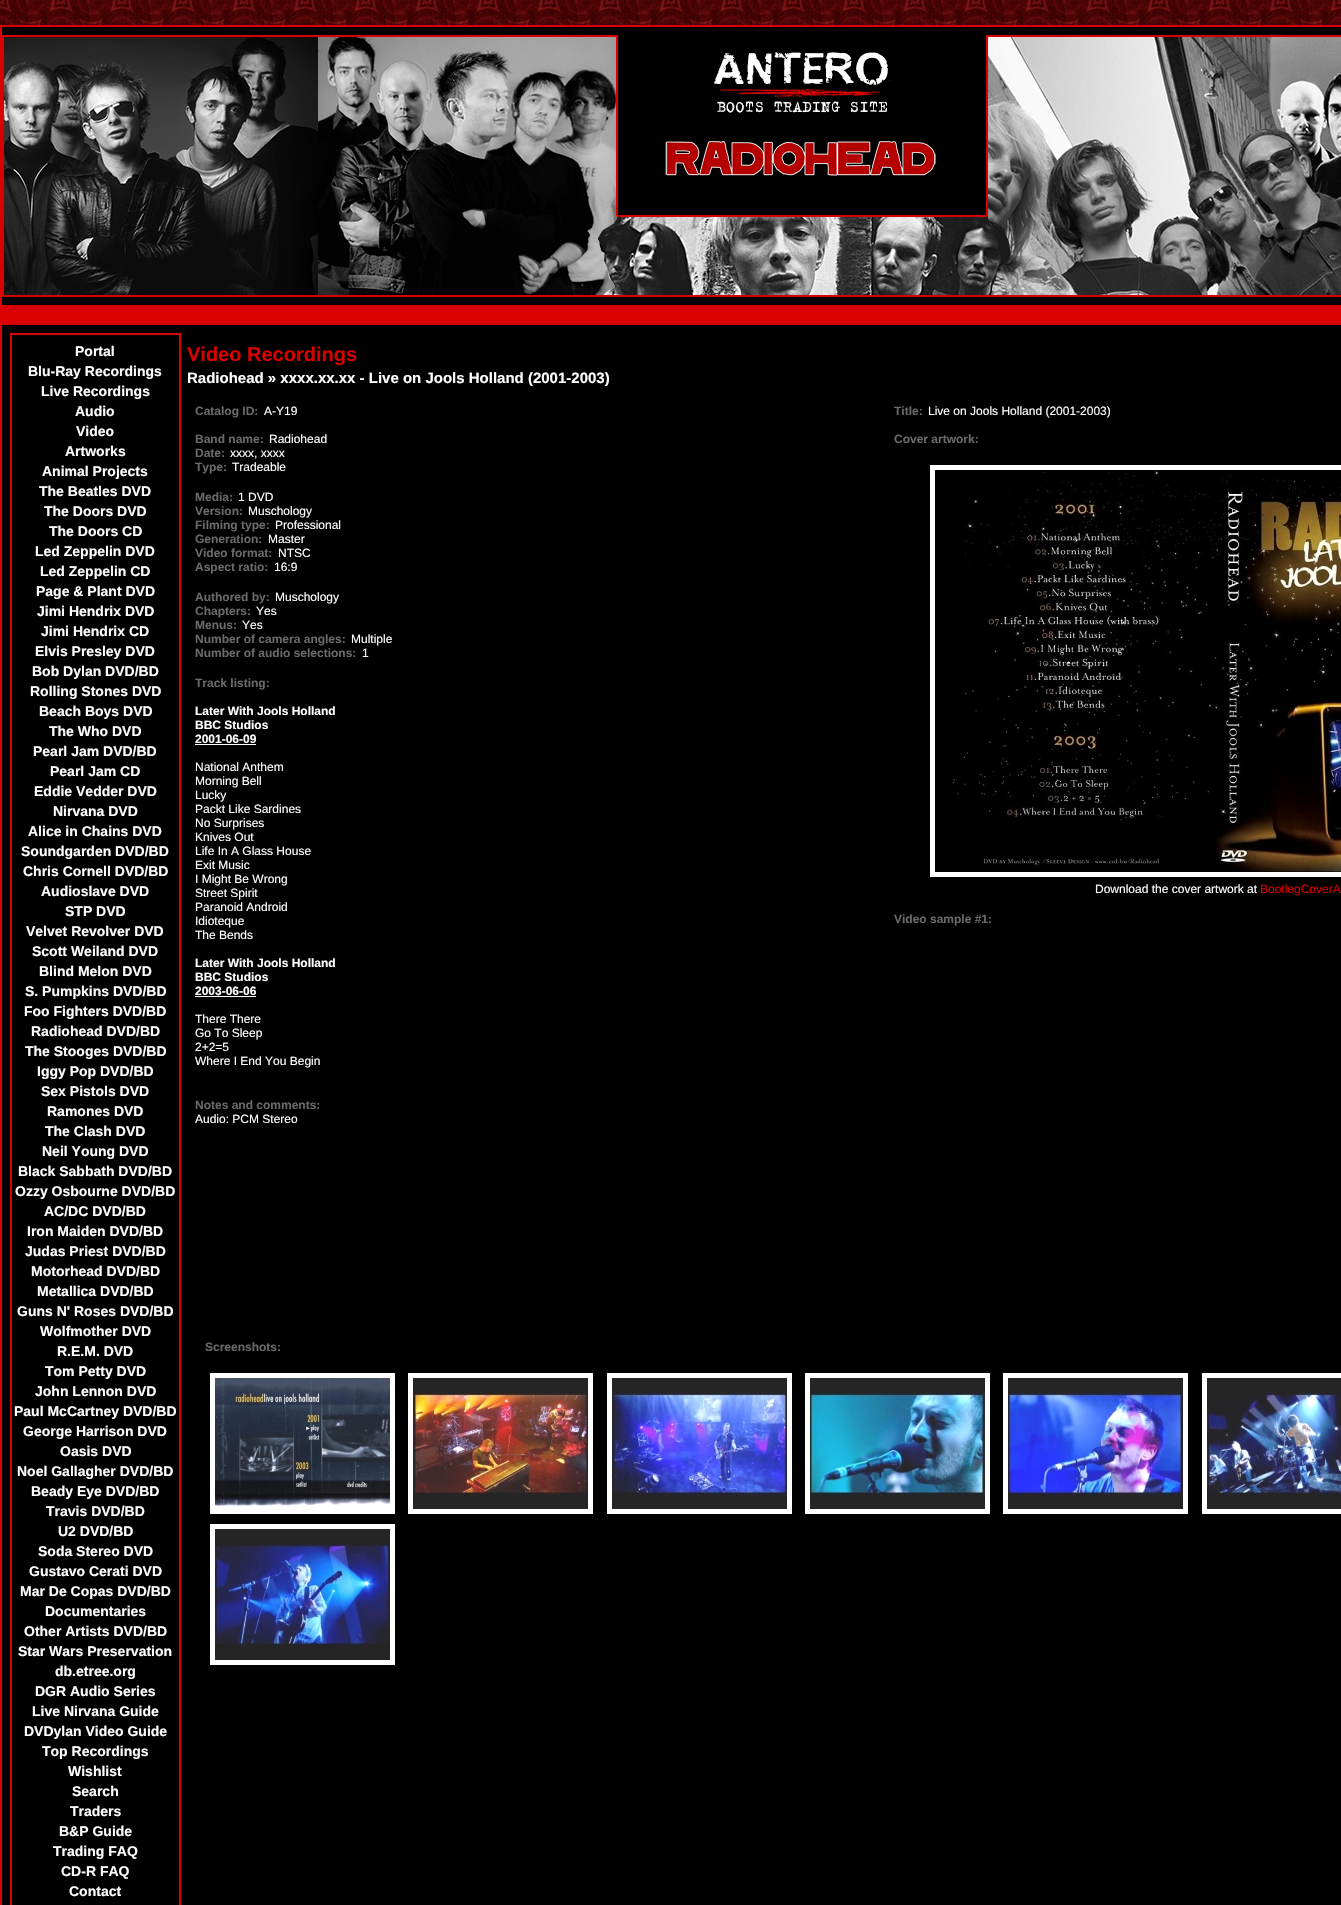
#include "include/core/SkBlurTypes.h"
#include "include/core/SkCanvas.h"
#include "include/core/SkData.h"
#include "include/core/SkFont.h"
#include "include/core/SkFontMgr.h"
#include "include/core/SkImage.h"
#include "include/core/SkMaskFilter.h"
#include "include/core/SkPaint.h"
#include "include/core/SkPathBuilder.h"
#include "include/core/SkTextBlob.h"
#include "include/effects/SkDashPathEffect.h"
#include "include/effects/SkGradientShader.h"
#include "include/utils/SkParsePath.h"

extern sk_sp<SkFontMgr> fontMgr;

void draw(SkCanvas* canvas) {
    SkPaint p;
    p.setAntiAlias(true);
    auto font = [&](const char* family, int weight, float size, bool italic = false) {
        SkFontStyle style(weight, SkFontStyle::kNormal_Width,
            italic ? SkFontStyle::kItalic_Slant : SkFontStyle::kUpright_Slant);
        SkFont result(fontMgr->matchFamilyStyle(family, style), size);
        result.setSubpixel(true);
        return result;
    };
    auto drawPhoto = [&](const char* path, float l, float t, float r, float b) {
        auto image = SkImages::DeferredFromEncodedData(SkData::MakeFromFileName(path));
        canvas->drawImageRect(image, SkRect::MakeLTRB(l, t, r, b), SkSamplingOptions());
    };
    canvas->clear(0xFFFFFFFF);
    drawPhoto("media/1.png", 0, 0, 1341, 25);
    p.setColor(0xFF000000);
    canvas->drawRect(SkRect::MakeLTRB(1, 26, 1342, 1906), p);
    p.setStyle(SkPaint::kStroke_Style);
    p.setStrokeWidth(2);
    p.setColor(0xFFDA0000);
    canvas->drawRect(SkRect::MakeLTRB(1, 26, 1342, 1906), p);
    drawPhoto("media/2.png", 2, 34, 1341, 325);
    canvas->drawRect(SkRect::MakeLTRB(11, 334, 180, 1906), p);
    auto font1 = font("Liberation Sans", 700, 14);
    p.setStyle(SkPaint::kFill_Style);
    p.setColor(0xFFFFFFFF);
    {
        const struct { const char* s; float x, y; } items[] = {
            {"Portal", 75, 356},
            {"Blu-Ray Recordings", 28, 376},
            {"Live Recordings", 41, 396},
            {"Audio", 75, 416},
            {"Video", 76, 436},
            {"Artworks", 65, 456},
            {"Animal Projects", 42, 476},
            {"The Beatles DVD", 39, 496},
            {"The Doors DVD", 44, 516},
            {"The Doors CD", 49, 536},
            {"Led Zeppelin DVD", 35, 556},
            {"Led Zeppelin CD", 40, 576},
            {"Page & Plant DVD", 36, 596},
            {"Jimi Hendrix DVD", 37, 616},
            {"Jimi Hendrix CD", 41, 636},
            {"Elvis Presley DVD", 35, 656},
            {"Bob Dylan DVD/BD", 32, 676},
            {"Rolling Stones DVD", 30, 696},
            {"Beach Boys DVD", 39, 716},
            {"The Who DVD", 49, 736},
            {"Pearl Jam DVD/BD", 33, 756},
            {"Pearl Jam CD", 50, 776},
            {"Eddie Vedder DVD", 34, 796},
            {"Nirvana DVD", 53, 816},
            {"Alice in Chains DVD", 28, 836},
            {"Soundgarden DVD/BD", 21, 856},
            {"Chris Cornell DVD/BD", 23, 876},
            {"Audioslave DVD", 41, 896},
            {"STP DVD", 65, 916},
            {"Velvet Revolver DVD", 26, 936},
            {"Scott Weiland DVD", 32, 956},
            {"Blind Melon DVD", 39, 976},
            {"S. Pumpkins DVD/BD", 25, 996},
            {"Foo Fighters DVD/BD", 24, 1016},
            {"Radiohead DVD/BD", 31, 1036},
            {"The Stooges DVD/BD", 25, 1056},
            {"Iggy Pop DVD/BD", 37, 1076},
            {"Sex Pistols DVD", 41, 1096},
            {"Ramones DVD", 47, 1116},
            {"The Clash DVD", 45, 1136},
            {"Neil Young DVD", 42, 1156},
            {"Black Sabbath DVD/BD", 18, 1176},
            {"Ozzy Osbourne DVD/BD", 15, 1196},
            {"AC/DC DVD/BD", 44, 1216},
            {"Iron Maiden DVD/BD", 27, 1236},
            {"Judas Priest DVD/BD", 25, 1256},
            {"Motorhead DVD/BD", 31, 1276},
            {"Metallica DVD/BD", 37, 1296},
            {"Guns N' Roses DVD/BD", 17, 1316},
            {"Wolfmother DVD", 40, 1336},
            {"R.E.M. DVD", 57, 1356},
            {"Tom Petty DVD", 45, 1376},
            {"John Lennon DVD", 35, 1396},
            {"Paul McCartney DVD/BD", 14, 1416},
            {"George Harrison DVD", 23, 1436},
            {"Oasis DVD", 60, 1456},
            {"Noel Gallagher DVD/BD", 17, 1476},
            {"Beady Eye DVD/BD", 31, 1496},
            {"Travis DVD/BD", 46, 1516},
            {"U2 DVD/BD", 58, 1536},
            {"Soda Stereo DVD", 38, 1556},
            {"Gustavo Cerati DVD", 29, 1576},
            {"Mar De Copas DVD/BD", 20, 1596},
            {"Documentaries", 45, 1616},
            {"Other Artists DVD/BD", 24, 1636},
            {"Star Wars Preservation", 18, 1656},
            {"db.etree.org", 55, 1676},
            {"DGR Audio Series", 35, 1696},
            {"Live Nirvana Guide", 32, 1716},
            {"DVDylan Video Guide", 24, 1736},
            {"Top Recordings", 42, 1756},
            {"Wishlist", 68, 1776},
            {"Search", 72, 1796},
            {"Traders", 70, 1816},
            {"B&P Guide", 59, 1836},
            {"Trading FAQ", 53, 1856},
            {"CD-R FAQ", 61, 1876},
            {"Contact", 69, 1896},
        };
        for (auto [s, x, y] : items) {
            canvas->drawString(s, x, y, font1, p);
        }
    }
    auto font2 = font("Liberation Sans", 700, 20);
    p.setColor(0xFFDA0000);
    canvas->drawString("Video Recordings", 187, 361, font2, p);
    auto font3 = font("Liberation Sans", 700, 15);
    p.setColor(0xFFFFFFFF);
    canvas->drawString("Radiohead » xxxx.xx.xx - Live on Jools Holland (2001-2003)", 187, 383, font3, p);
    auto font4 = font("Liberation Sans", 700, 12);
    p.setColor(0xFF6A6A6A);
    canvas->drawString("Catalog ID:", 195, 415, font4, p);
    auto font5 = font("Liberation Sans", 400, 12);
    p.setColor(0xFFFFFFFF);
    canvas->drawString("A-Y19", 264, 415, font5, p);
    p.setColor(0xFF6A6A6A);
    canvas->drawString("Band name:", 195, 443, font4, p);
    p.setColor(0xFFFFFFFF);
    canvas->drawString("Radiohead", 269, 443, font5, p);
    p.setColor(0xFF6A6A6A);
    canvas->drawString("Date:", 195, 457, font4, p);
    p.setColor(0xFFFFFFFF);
    canvas->drawString("xxxx, xxxx", 230, 457, font5, p);
    p.setColor(0xFF6A6A6A);
    canvas->drawString("Type:", 195, 471, font4, p);
    p.setColor(0xFFFFFFFF);
    canvas->drawString("Tradeable", 232, 471, font5, p);
    p.setColor(0xFF6A6A6A);
    canvas->drawString("Media:", 195, 501, font4, p);
    p.setColor(0xFFFFFFFF);
    canvas->drawString("1 DVD", 238, 501, font5, p);
    p.setColor(0xFF6A6A6A);
    canvas->drawString("Version:", 195, 515, font4, p);
    p.setColor(0xFFFFFFFF);
    canvas->drawString("Muschology", 248, 515, font5, p);
    p.setColor(0xFF6A6A6A);
    canvas->drawString("Filming type:", 195, 529, font4, p);
    p.setColor(0xFFFFFFFF);
    canvas->drawString("Professional", 275, 529, font5, p);
    p.setColor(0xFF6A6A6A);
    canvas->drawString("Generation:", 195, 543, font4, p);
    p.setColor(0xFFFFFFFF);
    canvas->drawString("Master", 268, 543, font5, p);
    p.setColor(0xFF6A6A6A);
    canvas->drawString("Video format:", 195, 557, font4, p);
    p.setColor(0xFFFFFFFF);
    canvas->drawString("NTSC", 278, 557, font5, p);
    p.setColor(0xFF6A6A6A);
    canvas->drawString("Aspect ratio:", 195, 571, font4, p);
    p.setColor(0xFFFFFFFF);
    canvas->drawString("16:9", 274, 571, font5, p);
    p.setColor(0xFF6A6A6A);
    canvas->drawString("Authored by:", 195, 601, font4, p);
    p.setColor(0xFFFFFFFF);
    canvas->drawString("Muschology", 275, 601, font5, p);
    p.setColor(0xFF6A6A6A);
    canvas->drawString("Chapters:", 195, 615, font4, p);
    p.setColor(0xFFFFFFFF);
    canvas->drawString("Yes", 256, 615, font5, p);
    p.setColor(0xFF6A6A6A);
    canvas->drawString("Menus:", 195, 629, font4, p);
    p.setColor(0xFFFFFFFF);
    canvas->drawString("Yes", 242, 629, font5, p);
    p.setColor(0xFF6A6A6A);
    canvas->drawString("Number of camera angles:", 195, 643, font4, p);
    p.setColor(0xFFFFFFFF);
    canvas->drawString("Multiple", 351, 643, font5, p);
    p.setColor(0xFF6A6A6A);
    canvas->drawString("Number of audio selections:", 195, 657, font4, p);
    p.setColor(0xFFFFFFFF);
    canvas->drawString("1", 362, 657, font5, p);
    p.setColor(0xFF6A6A6A);
    canvas->drawString("Track listing:", 195, 687, font4, p);
    p.setColor(0xFFFFFFFF);
    {
        const struct { const char* s; float x, y; } items[] = {
            {"Later With Jools Holland", 195, 715},
            {"BBC Studios", 195, 729},
            {"2001-06-09", 195, 743},
        };
        for (auto [s, x, y] : items) {
            canvas->drawString(s, x, y, font4, p);
        }
    }
    canvas->drawRect(SkRect::MakeLTRB(195, 744, 256, 745), p);
    {
        const struct { const char* s; float x, y; } items[] = {
            {"National Anthem", 195, 771},
            {"Morning Bell", 195, 785},
            {"Lucky", 195, 799},
            {"Packt Like Sardines", 195, 813},
            {"No Surprises", 195, 827},
            {"Knives Out", 195, 841},
            {"Life In A Glass House", 195, 855},
            {"Exit Music", 195, 869},
            {"I Might Be Wrong", 195, 883},
            {"Street Spirit", 195, 897},
            {"Paranoid Android", 195, 911},
            {"Idioteque", 195, 925},
            {"The Bends", 195, 939},
        };
        for (auto [s, x, y] : items) {
            canvas->drawString(s, x, y, font5, p);
        }
    }
    {
        const struct { const char* s; float x, y; } items[] = {
            {"Later With Jools Holland", 195, 967},
            {"BBC Studios", 195, 981},
            {"2003-06-06", 195, 995},
        };
        for (auto [s, x, y] : items) {
            canvas->drawString(s, x, y, font4, p);
        }
    }
    canvas->drawRect(SkRect::MakeLTRB(195, 996, 256, 997), p);
    {
        const struct { const char* s; float x, y; } items[] = {
            {"There There", 195, 1023},
            {"Go To Sleep", 195, 1037},
            {"2+2=5", 195, 1051},
            {"Where I End You Begin", 195, 1065},
        };
        for (auto [s, x, y] : items) {
            canvas->drawString(s, x, y, font5, p);
        }
    }
    p.setColor(0xFF6A6A6A);
    canvas->drawString("Notes and comments:", 195, 1109, font4, p);
    p.setColor(0xFFFFFFFF);
    canvas->drawString("Audio: PCM Stereo", 195, 1123, font5, p);
    p.setColor(0xFF6A6A6A);
    canvas->drawString("Title:", 894, 415, font4, p);
    p.setColor(0xFFFFFFFF);
    canvas->drawString("Live on Jools Holland (2001-2003)", 928, 415, font5, p);
    p.setColor(0xFF6A6A6A);
    canvas->drawString("Cover artwork:", 894, 443, font4, p);
    p.setStyle(SkPaint::kStroke_Style);
    p.setStrokeWidth(5);
    p.setColor(0xFFFFFFFF);
    canvas->drawRect(SkRect::MakeLTRB(932.5f, 467.5f, 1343.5f, 874.5f), p);
    drawPhoto("media/3.png", 952, 470, 1341, 872);
    p.setStyle(SkPaint::kFill_Style);
    canvas->drawString("Download the cover artwork at", 1095, 893, font5, p);
    p.setColor(0xFFDA0000);
    canvas->drawString("BootlegCoverA", 1260, 893, font5, p);
    p.setColor(0xFF6A6A6A);
    canvas->drawString("Video sample #1:", 894, 923, font4, p);
    canvas->drawString("Screenshots:", 205, 1351, font4, p);
    p.setStyle(SkPaint::kStroke_Style);
    p.setColor(0xFFFFFFFF);
    canvas->drawRect(SkRect::MakeLTRB(212.5f, 1375.5f, 392.5f, 1511.5f), p);
    canvas->drawRect(SkRect::MakeLTRB(410.5f, 1375.5f, 590.5f, 1511.5f), p);
    canvas->drawRect(SkRect::MakeLTRB(609.5f, 1375.5f, 789.5f, 1511.5f), p);
    canvas->drawRect(SkRect::MakeLTRB(807.5f, 1375.5f, 987.5f, 1511.5f), p);
    canvas->drawRect(SkRect::MakeLTRB(1005.5f, 1375.5f, 1185.5f, 1511.5f), p);
    canvas->drawRect(SkRect::MakeLTRB(1204.5f, 1375.5f, 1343.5f, 1511.5f), p);
    drawPhoto("media/4.png", 215, 1378, 390, 1509);
    drawPhoto("media/5.png", 413, 1378, 588, 1509);
    drawPhoto("media/6.png", 612, 1378, 787, 1509);
    drawPhoto("media/7.png", 810, 1378, 985, 1509);
    drawPhoto("media/8.png", 1008, 1378, 1183, 1509);
    drawPhoto("media/9.png", 1207, 1378, 1341, 1509);
    canvas->drawRect(SkRect::MakeLTRB(212.5f, 1526.5f, 392.5f, 1662.5f), p);
    drawPhoto("media/10.png", 215, 1529, 390, 1660);
}
